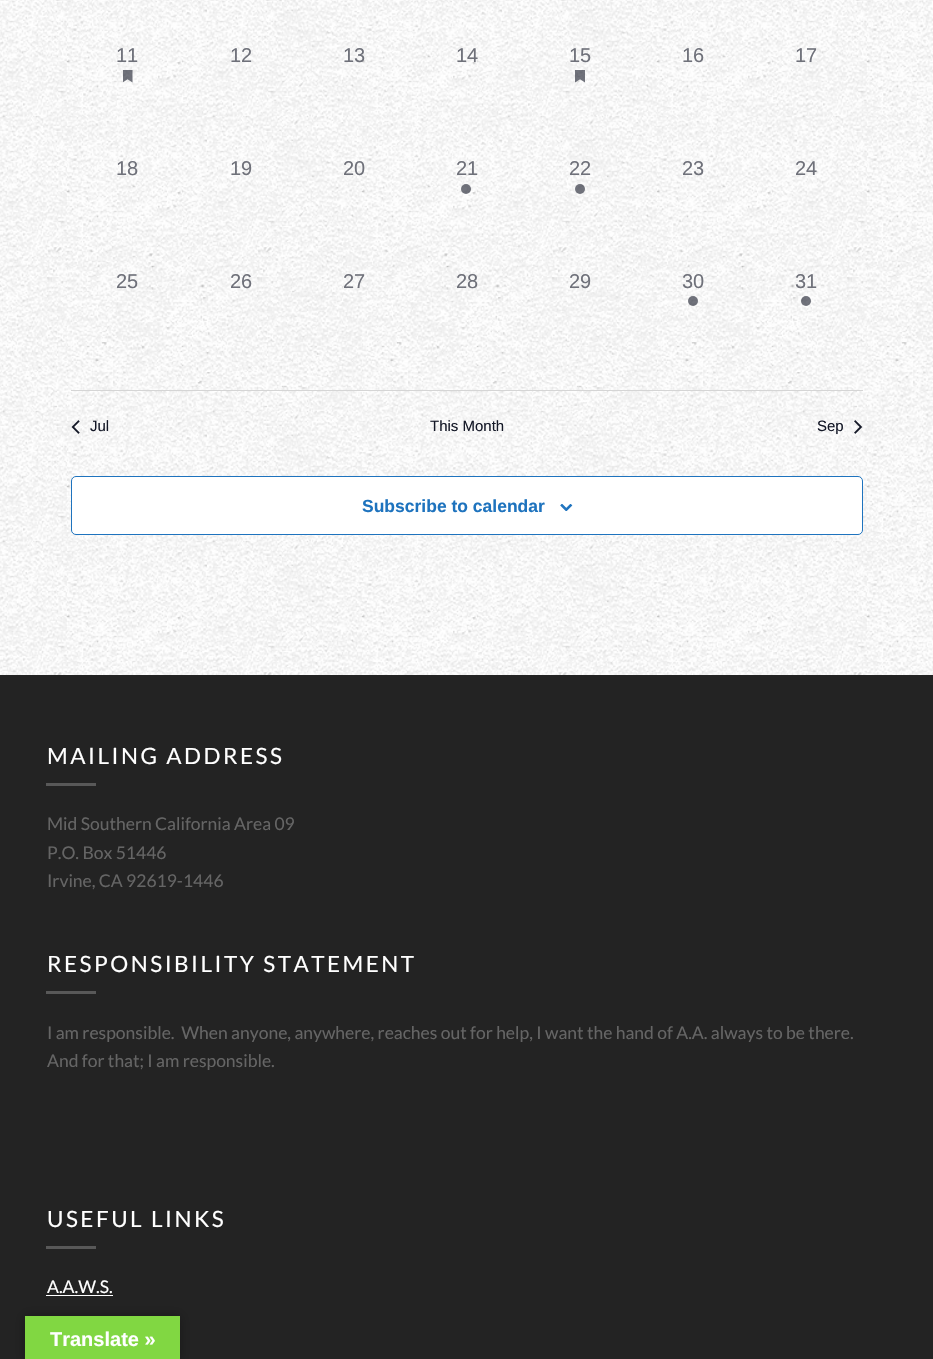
#include "include/core/SkBlurTypes.h"
#include "include/core/SkCanvas.h"
#include "include/core/SkData.h"
#include "include/core/SkFont.h"
#include "include/core/SkFontMgr.h"
#include "include/core/SkImage.h"
#include "include/core/SkMaskFilter.h"
#include "include/core/SkPaint.h"
#include "include/core/SkPathBuilder.h"
#include "include/core/SkTextBlob.h"
#include "include/effects/SkDashPathEffect.h"
#include "include/effects/SkGradientShader.h"
#include "include/utils/SkParsePath.h"

extern sk_sp<SkFontMgr> fontMgr;

void draw(SkCanvas* canvas) {
    SkPaint p;
    p.setAntiAlias(true);
    auto font = [&](const char* family, int weight, float size, bool italic = false) {
        SkFontStyle style(weight, SkFontStyle::kNormal_Width,
            italic ? SkFontStyle::kItalic_Slant : SkFontStyle::kUpright_Slant);
        SkFont result(fontMgr->matchFamilyStyle(family, style), size);
        result.setSubpixel(true);
        return result;
    };
    auto drawTracked = [&](const char* s, float x, float y, const SkFont& font, const SkPaint& ink, float letter, float word) {
        std::vector<SkGlyphID> glyphs(font.countText(s, strlen(s), SkTextEncoding::kUTF8));
        std::vector<float> xs(glyphs.size());
        font.textToGlyphs(s, strlen(s), SkTextEncoding::kUTF8, glyphs);
        font.getXPos(glyphs, xs, x);
        float extra = 0;
        for (size_t i = 0; i < glyphs.size(); i++) {
            xs[i] += extra;
            extra += letter + word * (glyphs[i] == font.unicharToGlyph(' '));
        }
        canvas->drawTextBlob(SkTextBlob::MakeFromPosHGlyphs(glyphs, xs, y, font), 0, 0, ink);
    };
    auto drawPhoto = [&](const char* path, float l, float t, float r, float b) {
        auto image = SkImages::DeferredFromEncodedData(SkData::MakeFromFileName(path));
        canvas->drawImageRect(image, SkRect::MakeLTRB(l, t, r, b), SkSamplingOptions());
    };
    canvas->clear(0xFFFFFFFF);
    drawPhoto("media/1.png", 0, 0, 933, 675);
    auto font1 = font("Liberation Sans", 400, 20);
    p.setColor(0xFF6F717A);
    canvas->drawString("11", 116, 62, font1, p);
    drawPhoto("media/2.png", 123, 70, 133, 83);
    {
        const struct { const char* s; float x, y; } items[] = {
            {"12", 230, 62},
            {"13", 343, 62},
            {"14", 456, 62},
            {"15", 569, 62},
        };
        for (auto [s, x, y] : items) {
            canvas->drawString(s, x, y, font1, p);
        }
    }
    drawPhoto("media/3.png", 575, 70, 585, 83);
    {
        const struct { const char* s; float x, y; } items[] = {
            {"16", 682, 62},
            {"17", 795, 62},
            {"18", 116, 175},
            {"19", 230, 175},
            {"20", 343, 175},
            {"21", 456, 175},
        };
        for (auto [s, x, y] : items) {
            canvas->drawString(s, x, y, font1, p);
        }
    }
    p.setColor(0x99141827);
    canvas->drawCircle(466, 189, 5, p);
    p.setColor(0xFF6F717A);
    canvas->drawString("22", 569, 175, font1, p);
    p.setColor(0x99141827);
    canvas->drawCircle(580, 189, 5, p);
    p.setColor(0xFF6F717A);
    {
        const struct { const char* s; float x, y; } items[] = {
            {"23", 682, 175},
            {"24", 795, 175},
            {"25", 116, 288},
            {"26", 230, 288},
            {"27", 343, 288},
            {"28", 456, 288},
            {"29", 569, 288},
            {"30", 682, 288},
        };
        for (auto [s, x, y] : items) {
            canvas->drawString(s, x, y, font1, p);
        }
    }
    p.setColor(0x99141827);
    canvas->drawCircle(693, 301, 5, p);
    p.setColor(0xFF6F717A);
    canvas->drawString("31", 795, 288, font1, p);
    p.setColor(0x99141827);
    canvas->drawCircle(806, 301, 5, p);
    p.setColor(0xFFD5D5D5);
    canvas->drawRect(SkRect::MakeLTRB(71, 390, 863, 391), p);
    drawPhoto("media/4.png", 71, 420, 80, 434);
    auto font2 = font("Liberation Sans", 400, 15);
    p.setColor(0xFF141827);
    {
        const struct { const char* s; float x, y; } items[] = {
            {"Jul", 90, 431},
            {"This Month", 430, 431},
            {"Sep", 817, 431},
        };
        for (auto [s, x, y] : items) {
            canvas->drawString(s, x, y, font2, p);
        }
    }
    drawPhoto("media/5.png", 854, 420, 863, 434);
    p.setColor(0xFFFFFFFF);
    canvas->drawRoundRect(SkRect::MakeLTRB(71.5f, 476.5f, 862.5f, 534.5f), 4.5f, 4.5f, p);
    p.setStyle(SkPaint::kStroke_Style);
    p.setStrokeWidth(1);
    p.setColor(0xFF1E73BE);
    canvas->drawRoundRect(SkRect::MakeLTRB(71.5f, 476.5f, 862.5f, 534.5f), 4.5f, 4.5f, p);
    auto font3 = font("Liberation Sans", 700, 17.5f);
    p.setStyle(SkPaint::kFill_Style);
    canvas->drawString("Subscribe to calendar", 362, 512, font3, p);
    drawPhoto("media/6.png", 560, 504, 573, 511);
    p.setColor(0xFF232323);
    canvas->drawRect(SkRect::MakeLTRB(0, 675, 933, 1359), p);
    auto font4 = font("Lato", 400, 22.5f);
    p.setColor(0xFFFFFFFF);
    drawTracked("MAILING ADDRESS", 47, 764, font4, p, 2.5f, 0);
    p.setColor(0xFF585858);
    canvas->drawRect(SkRect::MakeLTRB(46, 783, 96, 786), p);
    auto font5 = font("Lato", 400, 17.5f);
    p.setColor(0xFF656565);
    {
        const struct { const char* s; float x, y; } items[] = {
            {"Mid Southern California Area 09", 47, 830},
            {"P.O. Box 51446", 47, 859},
            {"Irvine, CA 92619-1446", 47, 887},
        };
        for (auto [s, x, y] : items) {
            canvas->drawString(s, x, y, font5, p);
        }
    }
    p.setColor(0xFFFFFFFF);
    drawTracked("RESPONSIBILITY STATEMENT", 47, 972, font4, p, 2.5f, 0);
    p.setColor(0xFF585858);
    canvas->drawRect(SkRect::MakeLTRB(46, 991, 96, 994), p);
    p.setColor(0xFF656565);
    canvas->drawString("I am responsible.  When anyone, anywhere, reaches out for help, I want the hand of A.A. always to be there.", 47, 1039, font5, p);
    canvas->drawString("And for that; I am responsible.", 47, 1067, font5, p);
    p.setColor(0xFFFFFFFF);
    drawTracked("USEFUL LINKS", 47, 1227, font4, p, 2.5f, 0);
    p.setColor(0xFF585858);
    canvas->drawRect(SkRect::MakeLTRB(46, 1246, 96, 1249), p);
    p.setColor(0xFFFFFFFF);
    canvas->drawString("A.A.W.S.", 47, 1293, font5, p);
    canvas->drawRect(SkRect::MakeLTRB(46, 1295, 113, 1296), p);
    p.setColor(0x4D000000);
    p.setMaskFilter(SkMaskFilter::MakeBlur(kNormal_SkBlurStyle, 5.5f));
    canvas->drawRect(SkRect::MakeLTRB(25, 1316, 180, 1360), p);
    p.setMaskFilter(nullptr);
    p.setColor(0xFF81D742);
    canvas->drawRect(SkRect::MakeLTRB(25, 1316, 180, 1359), p);
    auto font6 = font("Liberation Sans", 700, 20);
    p.setColor(0xFFFFFFFF);
    canvas->drawString("Translate »", 50, 1346, font6, p);
}
